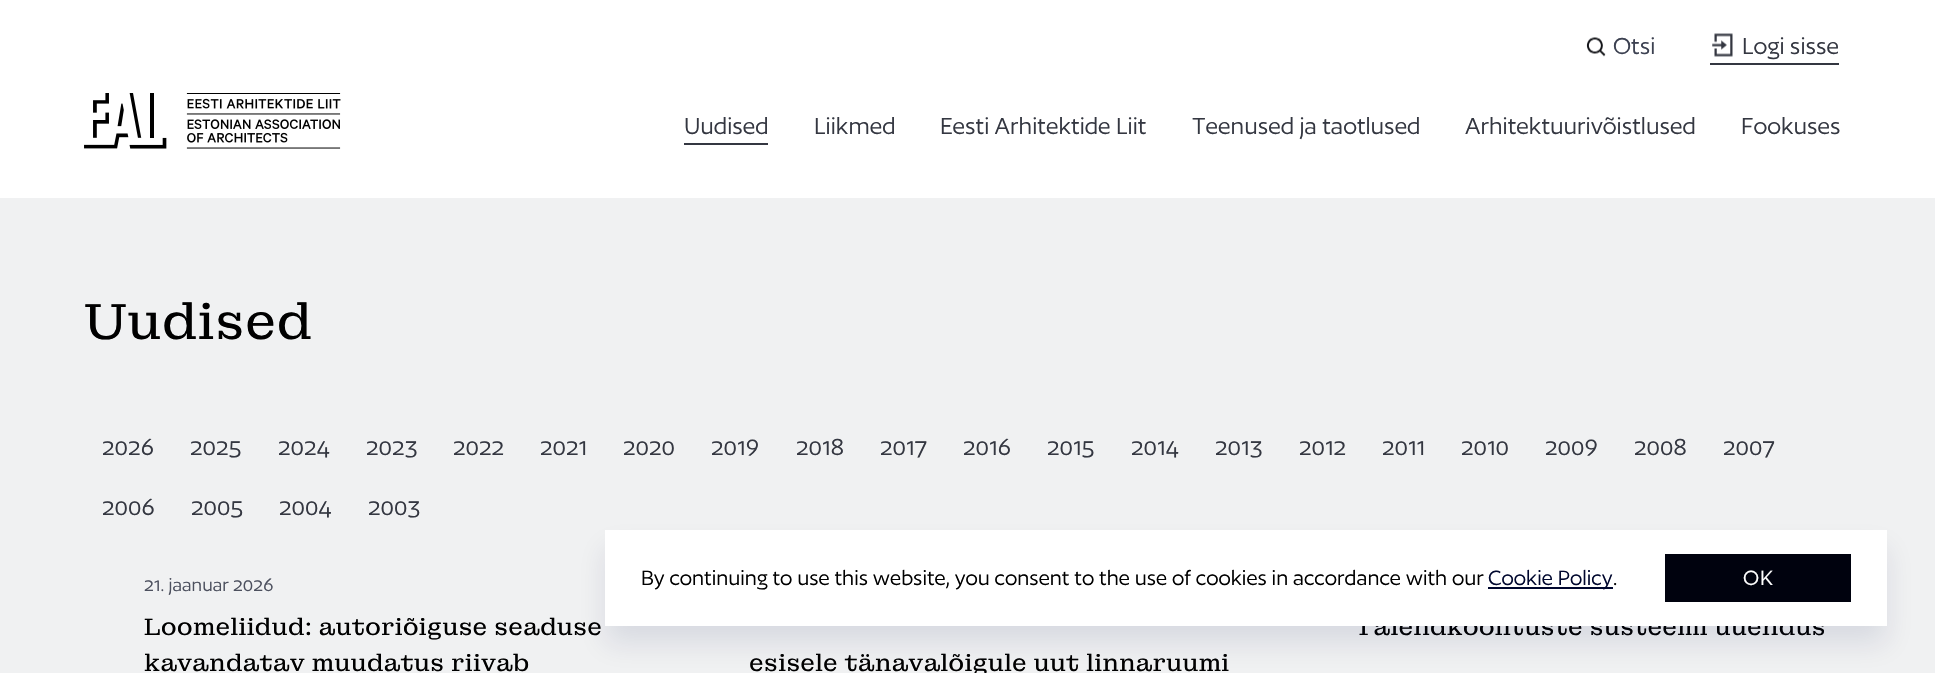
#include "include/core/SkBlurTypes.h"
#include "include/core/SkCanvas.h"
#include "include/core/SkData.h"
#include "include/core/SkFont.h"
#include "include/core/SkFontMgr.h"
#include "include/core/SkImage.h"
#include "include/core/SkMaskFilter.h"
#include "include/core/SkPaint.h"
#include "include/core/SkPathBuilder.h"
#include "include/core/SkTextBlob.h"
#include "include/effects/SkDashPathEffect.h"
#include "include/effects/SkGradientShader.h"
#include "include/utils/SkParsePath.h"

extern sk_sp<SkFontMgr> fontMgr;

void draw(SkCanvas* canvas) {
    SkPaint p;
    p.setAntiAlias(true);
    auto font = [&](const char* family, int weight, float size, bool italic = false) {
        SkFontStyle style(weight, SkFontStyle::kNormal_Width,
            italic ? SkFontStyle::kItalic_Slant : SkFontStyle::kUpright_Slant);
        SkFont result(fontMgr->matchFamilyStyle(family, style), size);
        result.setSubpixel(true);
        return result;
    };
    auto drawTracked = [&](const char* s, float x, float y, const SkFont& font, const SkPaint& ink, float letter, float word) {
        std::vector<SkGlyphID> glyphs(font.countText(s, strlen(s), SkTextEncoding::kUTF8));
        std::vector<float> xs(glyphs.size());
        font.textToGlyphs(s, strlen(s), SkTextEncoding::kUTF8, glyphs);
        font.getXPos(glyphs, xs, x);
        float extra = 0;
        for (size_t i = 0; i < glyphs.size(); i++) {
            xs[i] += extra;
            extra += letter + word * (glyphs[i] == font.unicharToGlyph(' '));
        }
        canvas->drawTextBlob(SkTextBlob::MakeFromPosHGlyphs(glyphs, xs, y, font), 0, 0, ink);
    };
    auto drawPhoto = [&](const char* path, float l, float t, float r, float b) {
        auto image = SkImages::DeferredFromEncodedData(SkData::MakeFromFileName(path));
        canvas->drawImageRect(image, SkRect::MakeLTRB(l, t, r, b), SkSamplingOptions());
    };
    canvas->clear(0xFFF0F1F2);
    p.setColor(0xFFFFFFFF);
    canvas->drawRect(SkRect::MakeLTRB(0, 0, 1935, 198), p);
    drawPhoto("media/1.png", 1586, 37, 1606, 57);
    auto font1 = font("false", 400, 27);
    p.setColor(0xFF3C4151);
    canvas->drawString("Otsi", 1613, 54, font1, p);
    drawPhoto("media/2.png", 1712, 33, 1733, 57);
    p.setColor(0xFF343741);
    canvas->drawString("Logi sisse", 1742, 54, font1, p);
    canvas->drawRect(SkRect::MakeLTRB(1710, 63, 1839, 65), p);
    drawPhoto("media/3.png", 84, 93, 341, 149);
    canvas->drawString("Uudised", 684, 134, font1, p);
    canvas->drawRect(SkRect::MakeLTRB(684, 143, 768, 145), p);
    {
        const struct { const char* s; float x, y; } items[] = {
            {"Liikmed", 814, 134},
            {"Eesti Arhitektide Liit", 940, 134},
            {"Teenused ja taotlused", 1192, 134},
            {"Arhitektuurivõistlused", 1465, 134},
            {"Fookuses", 1741, 134},
        };
        for (auto [s, x, y] : items) {
            canvas->drawString(s, x, y, font1, p);
        }
    }
    auto font2 = font("Montagu Slab", 400, 51);
    p.setColor(0xFF000000);
    canvas->drawString("Uudised", 84, 339, font2, p);
    p.setColor(0xFF343741);
    {
        const struct { const char* s; float x, y; } items[] = {
            {"2026", 102, 455},
            {"2025", 190, 455},
            {"2024", 278, 455},
            {"2023", 366, 455},
            {"2022", 453, 455},
            {"2021", 540, 455},
            {"2020", 623, 455},
            {"2019", 711, 455},
            {"2018", 796, 455},
            {"2017", 880, 455},
            {"2016", 963, 455},
            {"2015", 1047, 455},
            {"2014", 1131, 455},
            {"2013", 1215, 455},
            {"2012", 1299, 455},
            {"2011", 1382, 455},
            {"2010", 1461, 455},
            {"2009", 1545, 455},
            {"2008", 1634, 455},
            {"2007", 1723, 455},
            {"2006", 102, 515},
            {"2005", 191, 515},
            {"2004", 279, 515},
            {"2003", 368, 515},
        };
        for (auto [s, x, y] : items) {
            canvas->drawString(s, x, y, font1, p);
        }
    }
    auto font3 = font("false", 400, 21);
    p.setColor(0xFF4C505E);
    canvas->drawString("21. jaanuar 2026", 144, 591, font3, p);
    auto font4 = font("Montagu Slab", 400, 24);
    p.setColor(0xFF000000);
    {
        const struct { const char* s; float x, y; } items[] = {
            {"Loomeliidud: autoriõiguse seaduse", 144, 635},
            {"kavandatav muudatus riivab", 144, 671},
            {"Täiendkoolituste süsteemi uuendus", 1354, 635},
            {"esisele tänavalõigule uut linnaruumi", 749, 671},
        };
        for (auto [s, x, y] : items) {
            canvas->drawString(s, x, y, font4, p);
        }
    }
    p.setColor(0x1A09114E);
    p.setMaskFilter(SkMaskFilter::MakeBlur(kNormal_SkBlurStyle, 13.5f));
    canvas->drawRect(SkRect::MakeLTRB(605, 548, 1887, 644), p);
    p.setMaskFilter(nullptr);
    p.setColor(0xFFFFFFFF);
    canvas->drawRect(SkRect::MakeLTRB(605, 530, 1887, 626), p);
    auto font5 = font("false", 400, 24);
    p.setColor(0xFF000000);
    canvas->drawString("By continuing to use this website, you consent to the use of cookies in accordance with our", 641, 585, font5, p);
    p.setColor(0xFF00072E);
    canvas->drawRect(SkRect::MakeLTRB(1488, 587, 1613, 589), p);
    canvas->drawString("Cookie Policy", 1488, 585, font5, p);
    p.setColor(0xFF000000);
    canvas->drawString(".", 1613, 585, font5, p);
    p.setColor(0xFF00020E);
    canvas->drawRect(SkRect::MakeLTRB(1665, 554, 1851, 602), p);
    p.setColor(0xFFFFFFFF);
    drawTracked("OK", 1743, 585, font5, p, 1, 0);
}
